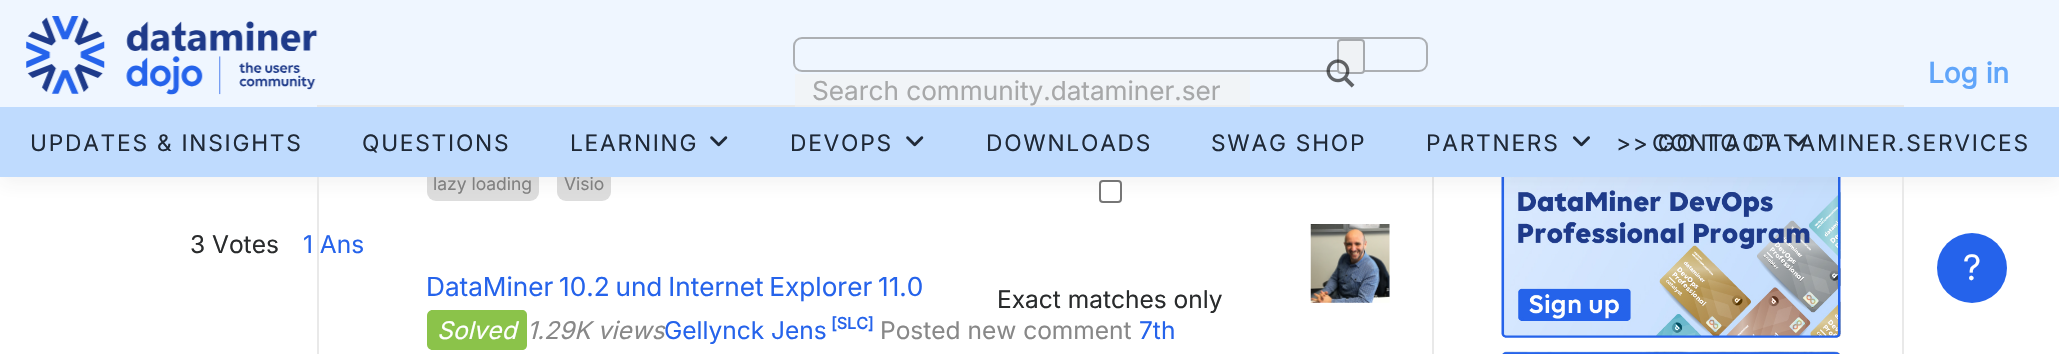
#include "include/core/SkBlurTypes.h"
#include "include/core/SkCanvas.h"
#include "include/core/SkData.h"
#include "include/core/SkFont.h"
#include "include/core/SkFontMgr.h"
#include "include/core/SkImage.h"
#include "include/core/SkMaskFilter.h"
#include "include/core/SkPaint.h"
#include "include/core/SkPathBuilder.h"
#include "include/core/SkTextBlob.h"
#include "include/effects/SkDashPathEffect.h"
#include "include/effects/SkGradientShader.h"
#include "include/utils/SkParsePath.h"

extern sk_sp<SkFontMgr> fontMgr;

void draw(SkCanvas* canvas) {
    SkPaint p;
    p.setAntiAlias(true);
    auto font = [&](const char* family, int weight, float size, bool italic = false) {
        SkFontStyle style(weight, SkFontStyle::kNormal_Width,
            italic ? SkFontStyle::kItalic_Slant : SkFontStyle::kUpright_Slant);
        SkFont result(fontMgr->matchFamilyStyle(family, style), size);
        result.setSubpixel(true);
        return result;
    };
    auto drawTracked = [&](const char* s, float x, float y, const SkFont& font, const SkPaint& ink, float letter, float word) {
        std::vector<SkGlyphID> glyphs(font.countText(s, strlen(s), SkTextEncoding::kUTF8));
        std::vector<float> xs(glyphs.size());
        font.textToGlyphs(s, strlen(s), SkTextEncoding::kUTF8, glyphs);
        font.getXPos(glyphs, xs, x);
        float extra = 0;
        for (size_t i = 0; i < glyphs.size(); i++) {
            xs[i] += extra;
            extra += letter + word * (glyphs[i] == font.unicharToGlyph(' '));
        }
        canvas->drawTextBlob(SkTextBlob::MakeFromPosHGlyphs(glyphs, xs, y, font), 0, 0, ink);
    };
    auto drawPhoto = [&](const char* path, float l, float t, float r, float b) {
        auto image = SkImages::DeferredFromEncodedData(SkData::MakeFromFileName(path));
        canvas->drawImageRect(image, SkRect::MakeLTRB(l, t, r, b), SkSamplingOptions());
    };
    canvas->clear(0xFFFFFFFF);
    p.setColor(0xFFE9E9E9);
    canvas->drawRect(SkRect::MakeLTRB(1432, 177, 1434, 354), p);
    p.setColor(0xFFDDDDDD);
    canvas->drawRoundRect(SkRect::MakeLTRB(427, 166, 539, 201), 9, 9, p);
    canvas->drawRoundRect(SkRect::MakeLTRB(557, 166, 611, 201), 9, 9, p);
    drawPhoto("media/6.png", 1501, 177, 1841, 338);
    p.setColor(0x0F323232);
    p.setMaskFilter(SkMaskFilter::MakeBlur(kNormal_SkBlurStyle, 9));
    canvas->drawRect(SkRect::MakeLTRB(0, 9, 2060, 184), p);
    p.setMaskFilter(nullptr);
    p.setColor(0xFFEFF6FF);
    canvas->drawRect(SkRect::MakeLTRB(0, 0, 2059, 107), p);
    drawPhoto("media/1.png", 26, 16, 318, 95);
    auto font1 = font("Inter", 700, 28);
    p.setColor(0xFF60A5FA);
    canvas->drawString("Log in", 1928, 83, font1, p);
    p.setStyle(SkPaint::kStroke_Style);
    p.setStrokeWidth(2);
    p.setColor(0xFFACAFB3);
    canvas->drawRoundRect(SkRect::MakeLTRB(794, 38, 1427, 71), 8, 8, p);
    p.setStyle(SkPaint::kFill_Style);
    p.setColor(0xFFEFF2F5);
    canvas->drawRoundRect(SkRect::MakeLTRB(1338, 40, 1364, 73), 3, 3, p);
    p.setStyle(SkPaint::kStroke_Style);
    p.setColor(0xFFA6A9AD);
    canvas->drawRoundRect(SkRect::MakeLTRB(1338, 40, 1364, 73), 3, 3, p);
    drawPhoto("media/2.png", 1326, 59, 1355, 88);
    auto font2 = font("Inter", 400, 24.5f);
    p.setStyle(SkPaint::kFill_Style);
    p.setColor(0xFF2563EB);
    canvas->drawString("1 Ans", 303, 253, font2, p);
    drawPhoto("media/5.png", 1310, 224, 1390, 303);
    p.setColor(0xFF8BC34A);
    canvas->drawPath(SkPathBuilder().moveTo(432.5f, 310).lineTo(438, 310).lineTo(438, 350).lineTo(432.5f, 350).cubicTo(429.5f, 350, 427, 347.5f, 427, 344.5f).lineTo(427, 315.5f).cubicTo(427, 312.5f, 429.5f, 310, 432.5f, 310).close().detach(), p);
    canvas->drawPath(SkPathBuilder().moveTo(438, 310).lineTo(522, 310).cubicTo(525, 310, 527, 312, 527, 315).lineTo(527, 345).cubicTo(527, 348, 525, 350, 522, 350).lineTo(438, 350).close().detach(), p);
    drawPhoto("media/7.png", 1502, 351, 1840, 354);
    p.setStyle(SkPaint::kStroke_Style);
    p.setColor(0xFFE9E9E9);
    canvas->drawRect(SkRect::MakeLTRB(318, 106, 1903, 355), p);
    p.setStyle(SkPaint::kFill_Style);
    p.setColor(0x99F2F2F2);
    canvas->drawRect(SkRect::MakeLTRB(795, 74, 1250, 107), p);
    auto font3 = font("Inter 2", 400, 26.25f);
    p.setColor(0xFFA7A8A9);
    canvas->drawString("Search community.dataminer.ser", 812, 100, font3, p);
    p.setColor(0xFFFFFFFF);
    canvas->drawRoundRect(SkRect::MakeLTRB(1100, 181, 1121, 202), 3, 3, p);
    p.setStyle(SkPaint::kStroke_Style);
    p.setColor(0xFF767676);
    canvas->drawRoundRect(SkRect::MakeLTRB(1100, 181, 1121, 202), 3, 3, p);
    p.setStyle(SkPaint::kFill_Style);
    p.setColor(0xFF292B2C);
    canvas->drawString("Exact matches only", 997, 308, font2, p);
    auto font4 = font("Inter", 400, 17.5f);
    p.setColor(0xFF808080);
    canvas->drawString("lazy loading", 433, 190, font4, p);
    canvas->drawString("Visio", 564, 190, font4, p);
    p.setColor(0xFFBFDBFE);
    canvas->drawRect(SkRect::MakeLTRB(0, 107, 2059, 177), p);
    auto font5 = font("Inter", 400, 22.75f);
    p.setColor(0xFF1F2937);
    {
        const struct { const char* s; float x, y; } items[] = {
            {"UPDATES & INSIGHTS", 30, 151},
            {"QUESTIONS", 362, 151},
            {"LEARNING", 570, 151},
        };
        for (auto [s, x, y] : items) {
            drawTracked(s, x, y, font5, p, 1.75f, 0);
        }
    }
    drawPhoto("media/3.png", 710, 136, 728, 147);
    drawTracked("DEVOPS", 790, 151, font5, p, 1.75f, 0);
    drawPhoto("media/3.png", 906, 136, 924, 147);
    {
        const struct { const char* s; float x, y; } items[] = {
            {"DOWNLOADS", 986, 151},
            {"SWAG SHOP", 1211, 151},
            {"PARTNERS", 1426, 151},
        };
        for (auto [s, x, y] : items) {
            drawTracked(s, x, y, font5, p, 1.75f, 0);
        }
    }
    drawPhoto("media/4.png", 1572, 136, 1590, 147);
    drawTracked("CONTACT", 1652, 151, font5, p, 1.75f, 0);
    drawPhoto("media/4.png", 1789, 136, 1807, 147);
    drawTracked(">> GO TO DATAMINER.SERVICES", 1616, 151, font5, p, 1.75f, 0);
    p.setColor(0xFF292B2C);
    canvas->drawString("3 Votes", 190, 253, font2, p);
    p.setColor(0xFF2563EB);
    drawTracked("DataMiner 10.2 und Internet Explorer 11.0", 426, 296, font3, p, 0, -1.5f);
    auto font6 = font("Inter", 400, 24.5f, true);
    p.setColor(0xFFFFFFFF);
    canvas->drawString("Solved", 437, 339, font6, p);
    p.setColor(0xFF888888);
    canvas->drawString("1.29K views", 527, 339, font6, p);
    p.setColor(0xFF2563EB);
    canvas->drawString("Gellynck Jens", 664, 339, font2, p);
    auto font7 = font("Inter", 700, 16);
    canvas->drawString("[SLC]", 831, 329, font7, p);
    p.setColor(0xFF888888);
    canvas->drawString("Posted new comment", 880, 339, font2, p);
    p.setColor(0xFF2563EB);
    canvas->drawString("7th", 1139, 339, font2, p);
    p.setStyle(SkPaint::kStroke_Style);
    p.setStrokeWidth(1.4f);
    p.setColor(0xFFEFF6FF);
    canvas->drawCircle(1700.5f, 97.5f, 7, p);
    p.setStyle(SkPaint::kFill_Style);
    p.setColor(0xFF2563EB);
    canvas->drawCircle(1972, 268, 35, p);
    auto font8 = font("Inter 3", 400, 35);
    p.setColor(0xFFFFFFFF);
    canvas->drawString("?", 1963, 280, font8, p);
}
